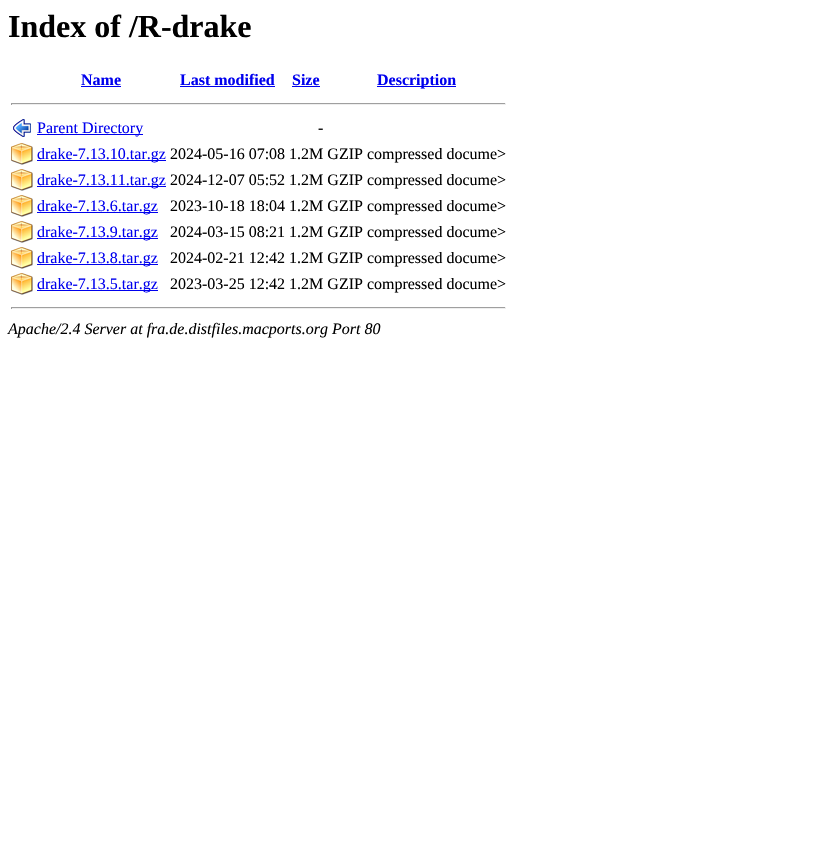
#include "include/core/SkBlurTypes.h"
#include "include/core/SkCanvas.h"
#include "include/core/SkData.h"
#include "include/core/SkFont.h"
#include "include/core/SkFontMgr.h"
#include "include/core/SkImage.h"
#include "include/core/SkMaskFilter.h"
#include "include/core/SkPaint.h"
#include "include/core/SkPathBuilder.h"
#include "include/core/SkTextBlob.h"
#include "include/effects/SkDashPathEffect.h"
#include "include/effects/SkGradientShader.h"
#include "include/utils/SkParsePath.h"

extern sk_sp<SkFontMgr> fontMgr;

void draw(SkCanvas* canvas) {
    SkPaint p;
    p.setAntiAlias(true);
    auto font = [&](const char* family, int weight, float size, bool italic = false) {
        SkFontStyle style(weight, SkFontStyle::kNormal_Width,
            italic ? SkFontStyle::kItalic_Slant : SkFontStyle::kUpright_Slant);
        SkFont result(fontMgr->matchFamilyStyle(family, style), size);
        result.setSubpixel(true);
        return result;
    };
    auto drawPhoto = [&](const char* path, float l, float t, float r, float b) {
        auto image = SkImages::DeferredFromEncodedData(SkData::MakeFromFileName(path));
        canvas->drawImageRect(image, SkRect::MakeLTRB(l, t, r, b), SkSamplingOptions());
    };
    canvas->clear(0xFFFFFFFF);
    auto font1 = font("Liberation Serif", 700, 32);
    p.setColor(0xFF000000);
    canvas->drawString("Index of /R-drake", 8, 37, font1, p);
    auto font2 = font("Liberation Serif", 700, 16);
    p.setColor(0xFF0000EE);
    canvas->drawString("Name", 81, 85, font2, p);
    canvas->drawRect(SkRect::MakeLTRB(81, 86, 121, 87), p);
    canvas->drawString("Last modified", 180, 85, font2, p);
    canvas->drawRect(SkRect::MakeLTRB(180, 86, 275, 87), p);
    canvas->drawString("Size", 292, 85, font2, p);
    canvas->drawRect(SkRect::MakeLTRB(292, 86, 320, 87), p);
    canvas->drawRect(SkRect::MakeLTRB(377, 86, 456, 87), p);
    canvas->drawString("Description", 377, 85, font2, p);
    {
        const struct { float l, t, r, b; SkColor color; } items[] = {
            {11, 103, 506, 104, 0xFF9F9F9F},
            {505, 103, 506, 105, 0xFFEEEEEE},
            {11, 104, 506, 105, 0xFFEEEEEE},
            {11, 103, 12, 105, 0xFF9F9F9F},
        };
        for (auto [l, t, r, b, color] : items) {
            p.setColor(color);
            canvas->drawRect(SkRect::MakeLTRB(l, t, r, b), p);
        }
    }
    drawPhoto("media/1.png", 13, 119, 31, 137);
    p.setColor(0xFF0000EE);
    canvas->drawRect(SkRect::MakeLTRB(37, 134, 143, 135), p);
    auto font3 = font("Liberation Serif", 400, 16);
    canvas->drawString("Parent Directory", 37, 133, font3, p);
    p.setColor(0xFF000000);
    canvas->drawString("-", 318, 133, font3, p);
    drawPhoto("media/2.png", 11, 143, 33, 165);
    p.setColor(0xFF0000EE);
    canvas->drawRect(SkRect::MakeLTRB(37, 160, 166, 161), p);
    canvas->drawString("drake-7.13.10.tar.gz", 37, 159, font3, p);
    p.setColor(0xFF000000);
    canvas->drawString("2024-05-16 07:08 1.2M GZIP compressed docume>", 170, 159, font3, p);
    drawPhoto("media/2.png", 11, 169, 33, 191);
    p.setColor(0xFF0000EE);
    canvas->drawRect(SkRect::MakeLTRB(37, 186, 166, 187), p);
    canvas->drawString("drake-7.13.11.tar.gz", 37, 185, font3, p);
    p.setColor(0xFF000000);
    canvas->drawString("2024-12-07 05:52 1.2M GZIP compressed docume>", 170, 185, font3, p);
    drawPhoto("media/2.png", 11, 195, 33, 217);
    p.setColor(0xFF0000EE);
    canvas->drawRect(SkRect::MakeLTRB(37, 212, 158, 213), p);
    canvas->drawString("drake-7.13.6.tar.gz", 37, 211, font3, p);
    p.setColor(0xFF000000);
    canvas->drawString("2023-10-18 18:04 1.2M GZIP compressed docume>", 170, 211, font3, p);
    drawPhoto("media/2.png", 11, 221, 33, 243);
    p.setColor(0xFF0000EE);
    canvas->drawRect(SkRect::MakeLTRB(37, 238, 158, 239), p);
    canvas->drawString("drake-7.13.9.tar.gz", 37, 237, font3, p);
    p.setColor(0xFF000000);
    canvas->drawString("2024-03-15 08:21 1.2M GZIP compressed docume>", 170, 237, font3, p);
    drawPhoto("media/2.png", 11, 247, 33, 269);
    p.setColor(0xFF0000EE);
    canvas->drawRect(SkRect::MakeLTRB(37, 264, 158, 265), p);
    canvas->drawString("drake-7.13.8.tar.gz", 37, 263, font3, p);
    p.setColor(0xFF000000);
    canvas->drawString("2024-02-21 12:42 1.2M GZIP compressed docume>", 170, 263, font3, p);
    drawPhoto("media/2.png", 11, 273, 33, 295);
    p.setColor(0xFF0000EE);
    canvas->drawRect(SkRect::MakeLTRB(37, 290, 158, 291), p);
    canvas->drawString("drake-7.13.5.tar.gz", 37, 289, font3, p);
    p.setColor(0xFF000000);
    canvas->drawString("2023-03-25 12:42 1.2M GZIP compressed docume>", 170, 289, font3, p);
    {
        const struct { float l, t, r, b; SkColor color; } items[] = {
            {11, 307, 506, 308, 0xFF9F9F9F},
            {505, 307, 506, 309, 0xFFEEEEEE},
            {11, 308, 506, 309, 0xFFEEEEEE},
            {11, 307, 12, 309, 0xFF9F9F9F},
        };
        for (auto [l, t, r, b, color] : items) {
            p.setColor(color);
            canvas->drawRect(SkRect::MakeLTRB(l, t, r, b), p);
        }
    }
    auto font4 = font("Liberation Serif", 400, 16, true);
    p.setColor(0xFF000000);
    canvas->drawString("Apache/2.4 Server at fra.de.distfiles.macports.org Port 80", 8, 334, font4, p);
}
